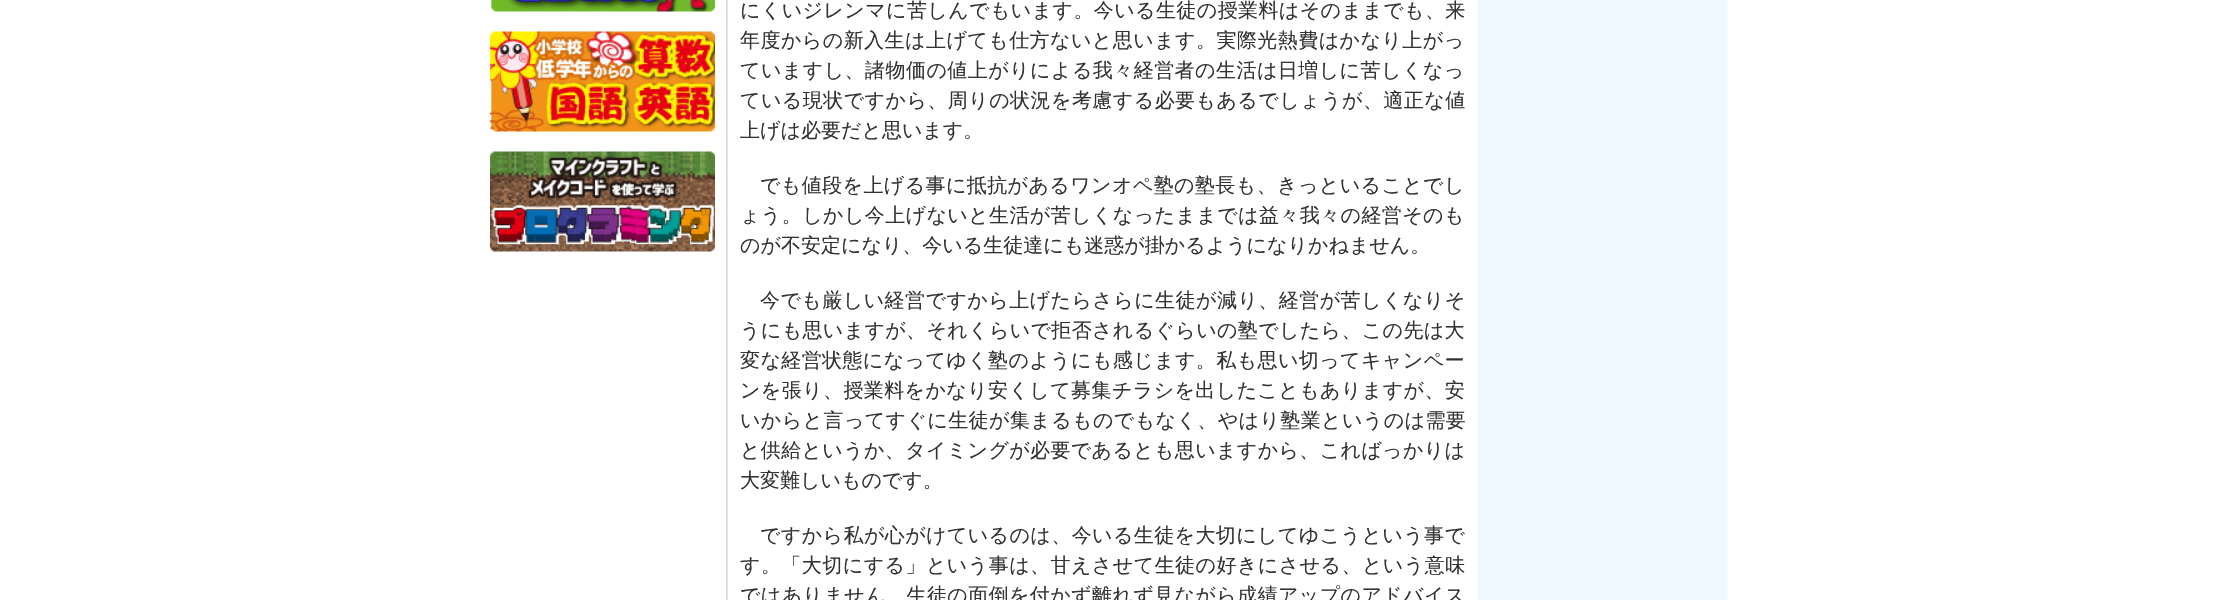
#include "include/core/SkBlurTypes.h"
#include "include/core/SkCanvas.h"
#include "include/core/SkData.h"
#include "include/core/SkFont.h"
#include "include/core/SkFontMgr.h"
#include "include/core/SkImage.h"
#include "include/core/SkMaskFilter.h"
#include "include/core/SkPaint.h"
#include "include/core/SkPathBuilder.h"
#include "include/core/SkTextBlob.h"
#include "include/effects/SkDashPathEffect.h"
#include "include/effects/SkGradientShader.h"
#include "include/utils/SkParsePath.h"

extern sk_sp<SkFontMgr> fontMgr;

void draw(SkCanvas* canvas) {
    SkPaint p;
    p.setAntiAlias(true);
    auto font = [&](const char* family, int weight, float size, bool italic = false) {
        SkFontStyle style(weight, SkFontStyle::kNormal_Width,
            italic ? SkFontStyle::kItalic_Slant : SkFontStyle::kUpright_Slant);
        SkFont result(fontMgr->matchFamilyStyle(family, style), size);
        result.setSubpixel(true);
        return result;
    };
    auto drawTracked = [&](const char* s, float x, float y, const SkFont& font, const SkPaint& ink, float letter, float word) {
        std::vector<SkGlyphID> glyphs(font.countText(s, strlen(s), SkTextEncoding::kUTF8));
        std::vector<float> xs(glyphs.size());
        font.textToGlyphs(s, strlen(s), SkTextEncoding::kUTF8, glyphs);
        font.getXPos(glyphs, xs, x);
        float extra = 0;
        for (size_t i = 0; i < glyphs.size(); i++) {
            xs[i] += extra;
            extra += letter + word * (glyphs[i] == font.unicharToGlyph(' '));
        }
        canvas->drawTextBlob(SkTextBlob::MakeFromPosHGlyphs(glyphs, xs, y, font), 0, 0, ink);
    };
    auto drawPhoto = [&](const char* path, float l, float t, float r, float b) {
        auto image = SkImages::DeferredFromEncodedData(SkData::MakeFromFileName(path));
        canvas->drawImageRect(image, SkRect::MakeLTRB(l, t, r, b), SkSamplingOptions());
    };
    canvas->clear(0xFFFFFFFF);
    drawPhoto("media/1.png", 726, 0, 1728, 600);
    drawPhoto("media/2.png", 491, 0, 715, 12);
    drawPhoto("media/3.png", 490, 31, 715, 132);
    drawPhoto("media/4.png", 490, 151, 715, 252);
    auto font1 = font("WenQuanYi Zen Hei", 500, 20);
    p.setColor(0xFF333333);
    drawTracked("にくいジレンマに苦しんでもいます。今いる生徒の授業料はそのままでも、来", 740, 17, font1, p, 0.4f, 0);
    {
        const struct { const char* s; float x, y; } items[] = {
            {"年度からの新入生は上げても仕方ないと思います。実際光熱費はかなり上がっ", 740, 47},
            {"ていますし、諸物価の値上がりによる我々経営者の生活は日増しに苦しくなっ", 740, 77},
            {"ている現状ですから、周りの状況を考慮する必要もあるでしょうが、適正な値", 740, 107},
        };
        for (auto [s, x, y] : items) {
            drawTracked(s, x, y, font1, p, 0.45f, 0);
        }
    }
    canvas->drawString("上げは必要だと思います。", 740, 137, font1, p);
    drawTracked("でも値段を上げる事に抵抗があるワンオペ塾の塾長も、きっといることでし", 760, 192, font1, p, 0.4f, 0);
    drawTracked("ょう。しかし今上げないと生活が苦しくなったままでは益々我々の経営そのも", 740, 222, font1, p, 0.4f, 0);
    canvas->drawString("のが不安定になり、今いる生徒達にも迷惑が掛かるようになりかねません。", 740, 252, font1, p);
    drawTracked("今でも厳しい経営ですから上げたらさらに生徒が減り、経営が苦しくなりそ", 760, 307, font1, p, 0.45f, 0);
    drawTracked("うにも思いますが、それくらいで拒否されるぐらいの塾でしたら、この先は大", 740, 337, font1, p, 0.35f, 0);
    {
        const struct { const char* s; float x, y; } items[] = {
            {"変な経営状態になってゆく塾のようにも感じます。私も思い切ってキャンペー", 740, 367},
            {"ンを張り、授業料をかなり安くして募集チラシを出したこともありますが、安", 740, 397},
            {"いからと言ってすぐに生徒が集まるものでもなく、やはり塾業というのは需要", 740, 427},
        };
        for (auto [s, x, y] : items) {
            drawTracked(s, x, y, font1, p, 0.4f, 0);
        }
    }
    drawTracked("と供給というか、タイミングが必要であるとも思いますから、こればっかりは", 740, 457, font1, p, 0.35f, 0);
    canvas->drawString("大変難しいものです。", 740, 487, font1, p);
    drawTracked("ですから私が心がけているのは、今いる生徒を大切にしてゆこうという事で", 760, 542, font1, p, 0.4f, 0);
    drawTracked("す。「大切にする」という事は、甘えさせて生徒の好きにさせる、という意味", 740, 572, font1, p, 0.45f, 0);
    drawTracked("ではありません。生徒の面倒を付かず離れず見ながら成績アップのアドバイス", 740, 602, font1, p, 0.4f, 0);
}
